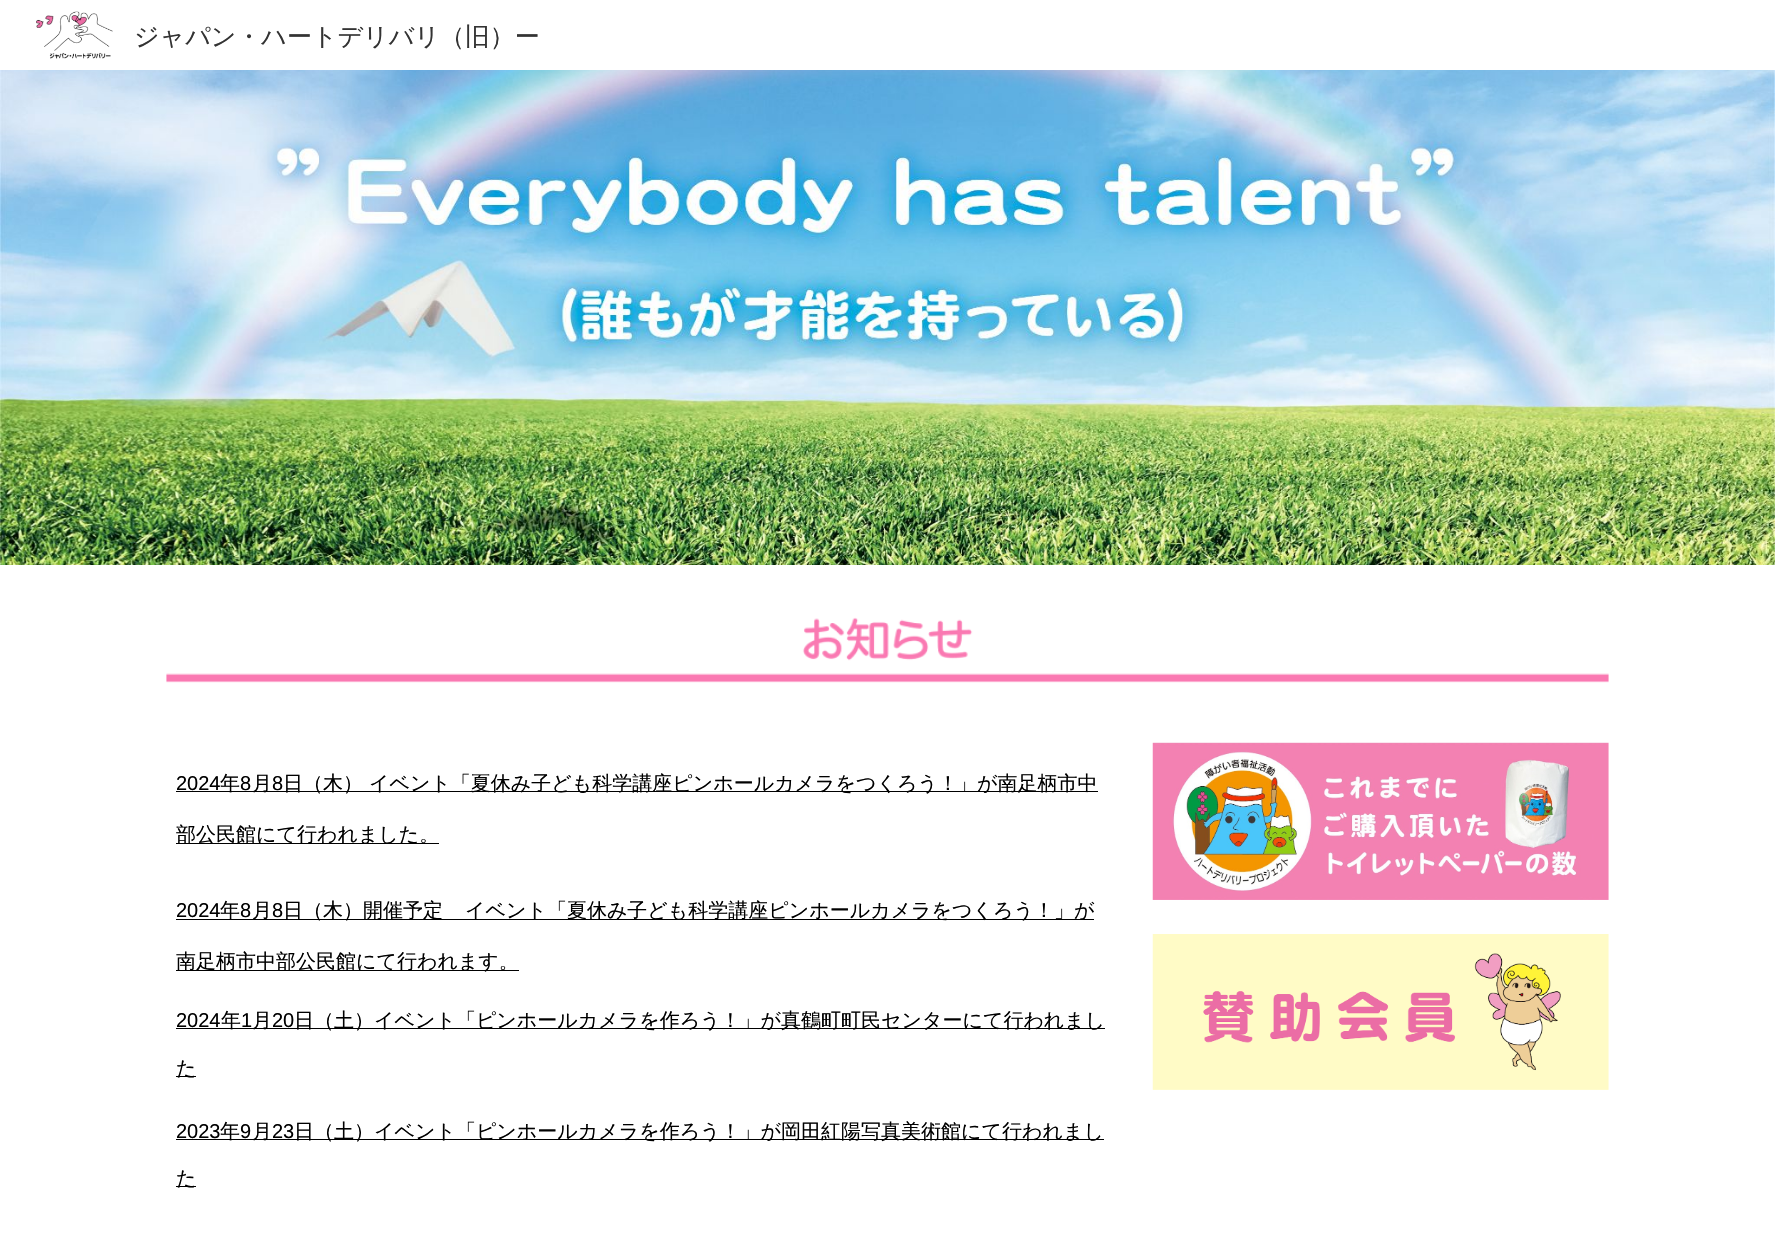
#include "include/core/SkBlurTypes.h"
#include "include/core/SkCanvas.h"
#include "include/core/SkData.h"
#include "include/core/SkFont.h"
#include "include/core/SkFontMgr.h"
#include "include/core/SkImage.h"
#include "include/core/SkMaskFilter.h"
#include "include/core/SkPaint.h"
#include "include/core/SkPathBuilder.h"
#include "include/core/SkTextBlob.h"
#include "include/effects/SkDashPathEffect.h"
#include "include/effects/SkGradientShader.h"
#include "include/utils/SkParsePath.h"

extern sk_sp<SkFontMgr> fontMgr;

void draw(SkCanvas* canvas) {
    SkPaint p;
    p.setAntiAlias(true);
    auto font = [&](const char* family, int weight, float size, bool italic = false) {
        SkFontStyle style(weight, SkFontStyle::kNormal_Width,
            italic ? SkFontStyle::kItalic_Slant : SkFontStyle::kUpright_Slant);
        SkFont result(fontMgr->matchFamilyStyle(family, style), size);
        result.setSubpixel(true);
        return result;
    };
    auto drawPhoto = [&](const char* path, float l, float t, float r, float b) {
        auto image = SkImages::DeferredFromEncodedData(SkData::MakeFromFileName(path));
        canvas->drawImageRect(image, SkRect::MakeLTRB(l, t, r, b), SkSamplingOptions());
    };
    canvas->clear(0xFFFFFFFF);
    drawPhoto("media/1.png", 36, 11, 113, 59);
    auto font1 = font("WenQuanYi Zen Hei", 500, 25);
    p.setColor(0xFF333333);
    canvas->drawString("ジャパン・ハートデリバリ（旧）ー", 134, 45, font1, p);
    drawPhoto("media/2.png", 0, 70, 1775, 565);
    drawPhoto("media/3.png", 166, 617, 1609, 683);
    auto font2 = font("Liberation Sans", 400, 20);
    p.setColor(0xFF000000);
    canvas->drawString("2024", 176, 790, font2, p);
    canvas->drawRect(SkRect::MakeLTRB(176, 791, 1098, 792), p);
    auto font3 = font("WenQuanYi Zen Hei", 500, 20);
    canvas->drawString("年", 220, 790, font3, p);
    canvas->drawString("8", 240, 790, font2, p);
    canvas->drawString("月", 252, 790, font3, p);
    canvas->drawString("8", 272, 790, font2, p);
    canvas->drawString("日（木） イベント「夏休み子ども科学講座ピンホールカメラをつくろう！", 283, 790, font3, p);
    canvas->drawString("」が南足柄市中", 957, 790, font3, p);
    canvas->drawRect(SkRect::MakeLTRB(176, 843, 439, 844), p);
    canvas->drawString("部公民館にて行われました。", 176, 841, font3, p);
    canvas->drawString("2024", 176, 917, font2, p);
    canvas->drawRect(SkRect::MakeLTRB(176, 919, 1094, 920), p);
    canvas->drawString("年", 220, 917, font3, p);
    canvas->drawString("8", 240, 917, font2, p);
    canvas->drawString("月", 252, 917, font3, p);
    canvas->drawString("8", 272, 917, font2, p);
    canvas->drawString("日（木）開催予定", 283, 917, font3, p);
    canvas->drawString("イベント「夏休み子ども科学講座ピンホールカメラをつくろう！」が", 465, 917, font3, p);
    canvas->drawRect(SkRect::MakeLTRB(176, 970, 519, 971), p);
    canvas->drawString("南足柄市中部公民館にて行われます。", 176, 968, font3, p);
    canvas->drawString("2024", 176, 1027, font2, p);
    canvas->drawRect(SkRect::MakeLTRB(176, 1028, 1105, 1029), p);
    canvas->drawString("年", 221, 1027, font3, p);
    canvas->drawString("1", 241, 1027, font2, p);
    canvas->drawString("月", 252, 1027, font3, p);
    canvas->drawString("20", 272, 1027, font2, p);
    canvas->drawString("日（土）イベント「ピンホールカメラを作ろう！」が真鶴町町民センターにて行われまし", 294, 1027, font3, p);
    canvas->drawRect(SkRect::MakeLTRB(176, 1076, 196, 1077), p);
    canvas->drawString("た", 176, 1075, font3, p);
    canvas->drawString("2023", 176, 1138, font2, p);
    canvas->drawRect(SkRect::MakeLTRB(176, 1139, 1104, 1140), p);
    canvas->drawString("年", 220, 1138, font3, p);
    canvas->drawString("9", 240, 1138, font2, p);
    canvas->drawString("月", 252, 1138, font3, p);
    canvas->drawString("23", 272, 1138, font2, p);
    canvas->drawString("日（土）イベント「ピンホールカメラを作ろう！」が岡田紅陽写真美術館にて行われまし", 294, 1138, font3, p);
    canvas->drawRect(SkRect::MakeLTRB(176, 1186, 196, 1187), p);
    canvas->drawString("た", 176, 1185, font3, p);
    drawPhoto("media/4.png", 1152, 742, 1609, 900);
    drawPhoto("media/5.png", 1152, 934, 1609, 1090);
}
